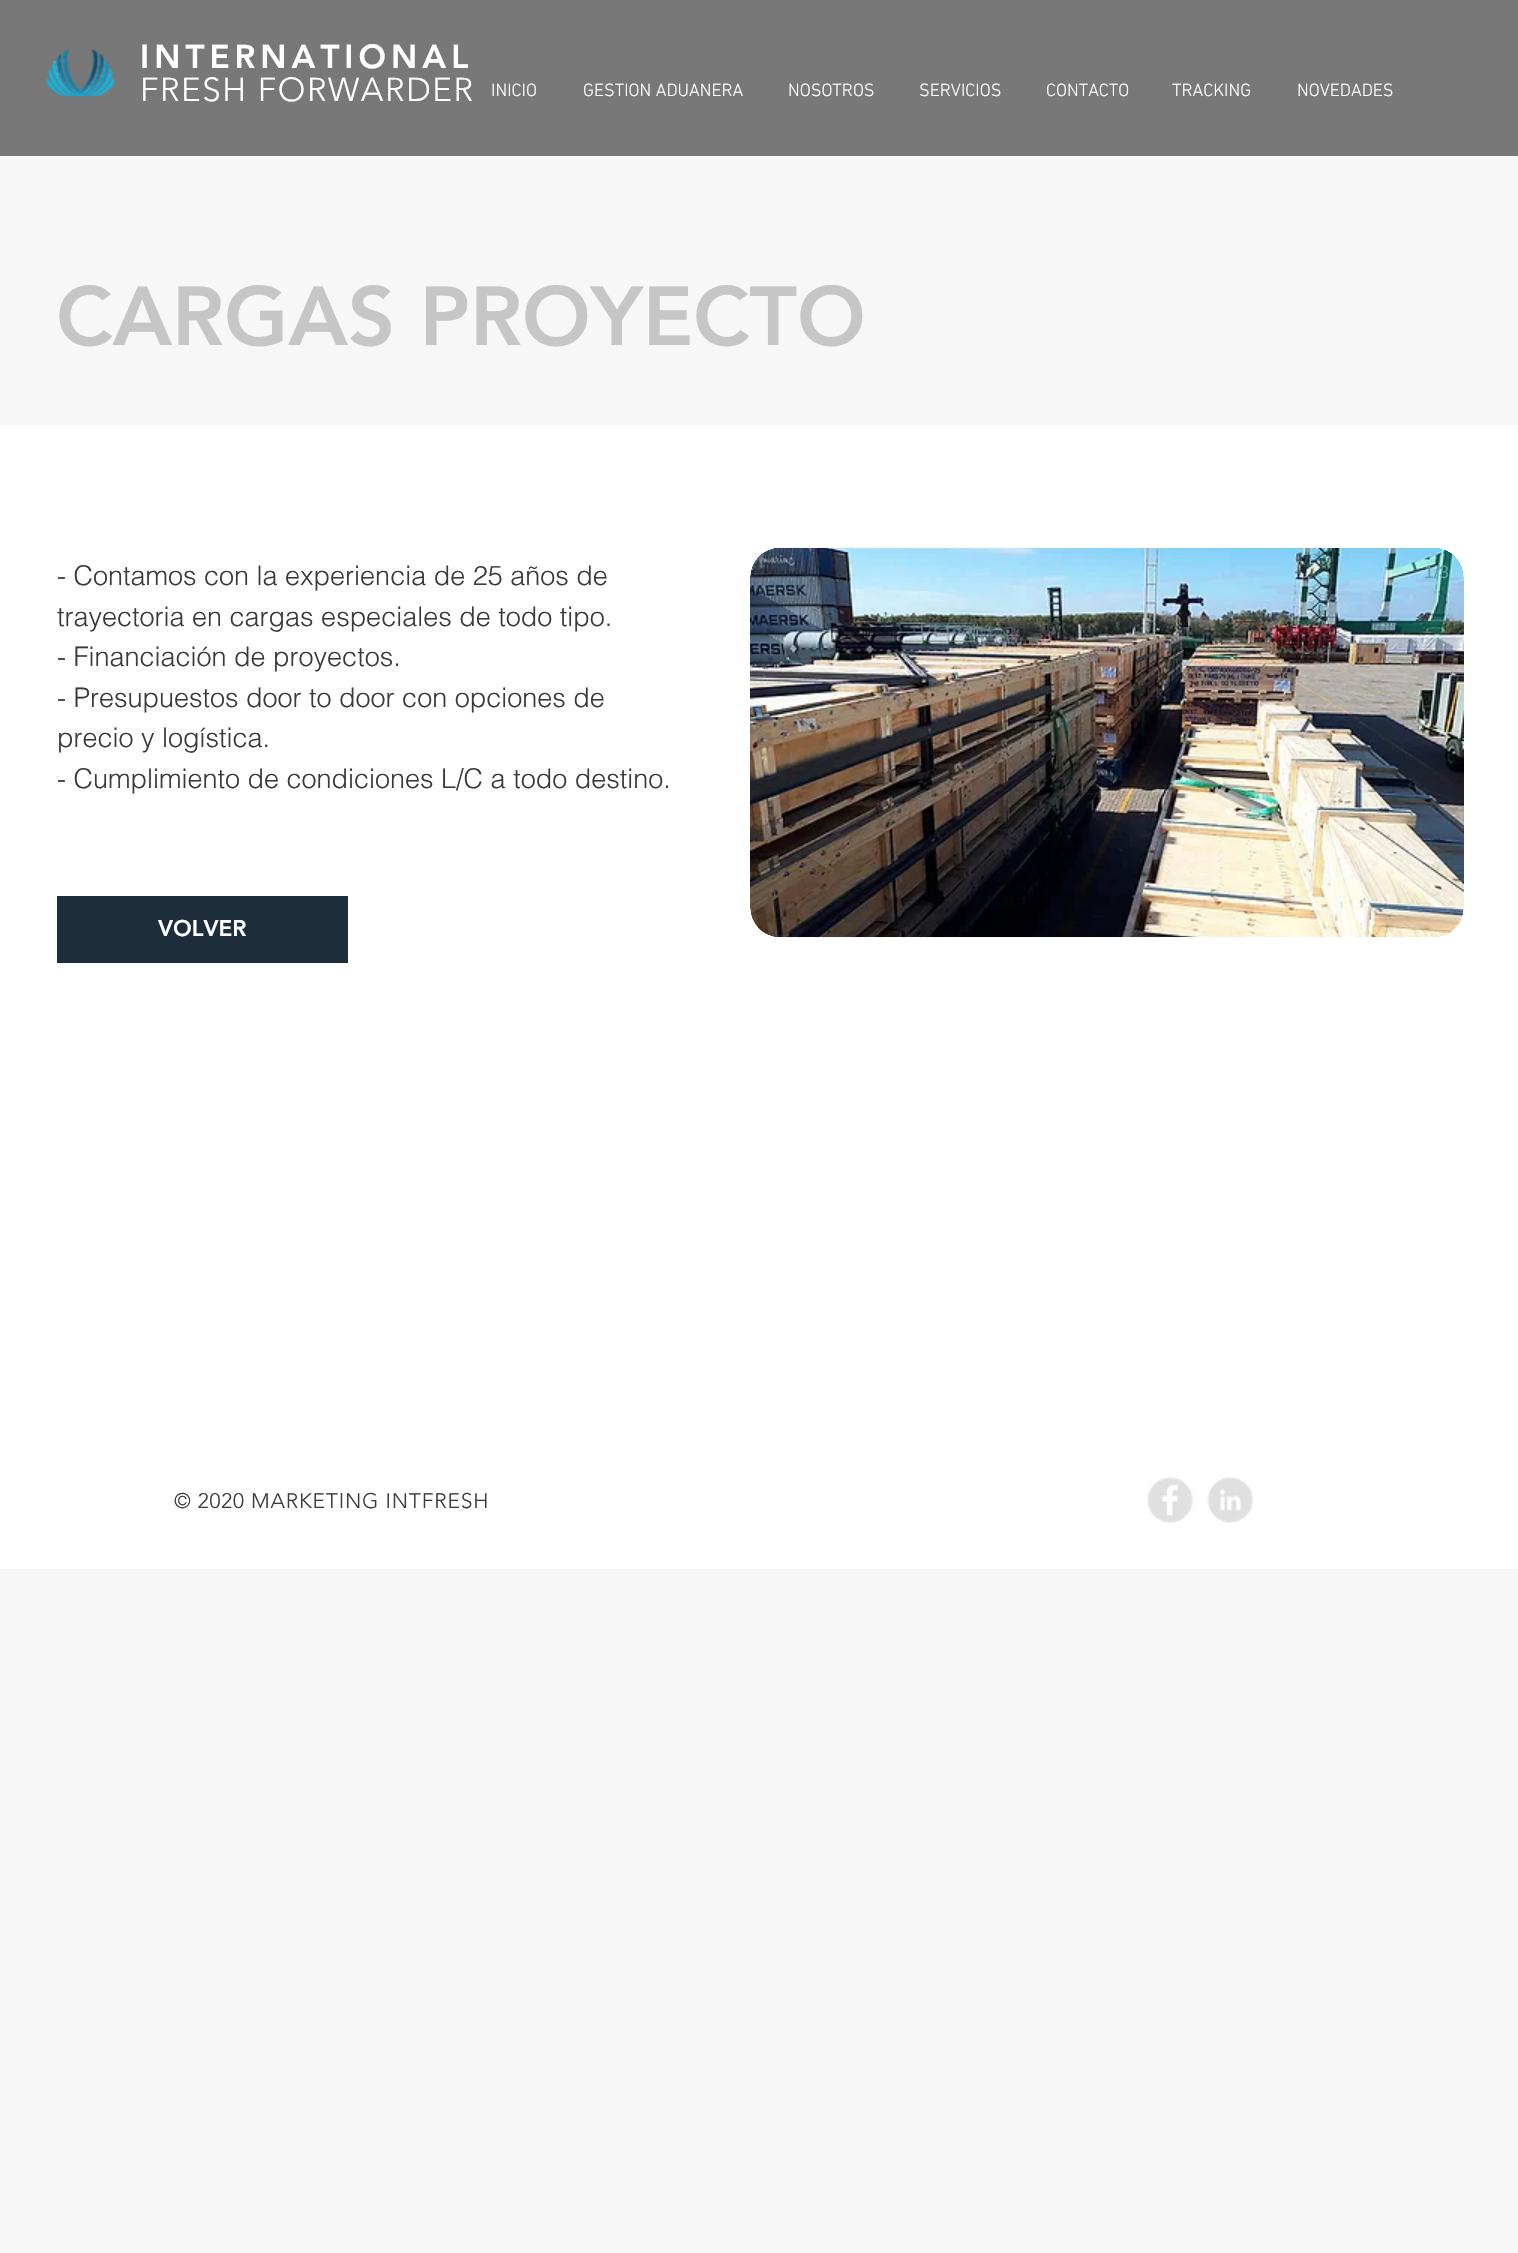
#include "include/core/SkBlurTypes.h"
#include "include/core/SkCanvas.h"
#include "include/core/SkData.h"
#include "include/core/SkFont.h"
#include "include/core/SkFontMgr.h"
#include "include/core/SkImage.h"
#include "include/core/SkMaskFilter.h"
#include "include/core/SkPaint.h"
#include "include/core/SkPathBuilder.h"
#include "include/core/SkTextBlob.h"
#include "include/effects/SkDashPathEffect.h"
#include "include/effects/SkGradientShader.h"
#include "include/utils/SkParsePath.h"

extern sk_sp<SkFontMgr> fontMgr;

void draw(SkCanvas* canvas) {
    SkPaint p;
    p.setAntiAlias(true);
    auto font = [&](const char* family, int weight, float size, bool italic = false) {
        SkFontStyle style(weight, SkFontStyle::kNormal_Width,
            italic ? SkFontStyle::kItalic_Slant : SkFontStyle::kUpright_Slant);
        SkFont result(fontMgr->matchFamilyStyle(family, style), size);
        result.setSubpixel(true);
        return result;
    };
    auto drawTracked = [&](const char* s, float x, float y, const SkFont& font, const SkPaint& ink, float letter, float word) {
        std::vector<SkGlyphID> glyphs(font.countText(s, strlen(s), SkTextEncoding::kUTF8));
        std::vector<float> xs(glyphs.size());
        font.textToGlyphs(s, strlen(s), SkTextEncoding::kUTF8, glyphs);
        font.getXPos(glyphs, xs, x);
        float extra = 0;
        for (size_t i = 0; i < glyphs.size(); i++) {
            xs[i] += extra;
            extra += letter + word * (glyphs[i] == font.unicharToGlyph(' '));
        }
        canvas->drawTextBlob(SkTextBlob::MakeFromPosHGlyphs(glyphs, xs, y, font), 0, 0, ink);
    };
    auto drawPhoto = [&](const char* path, float l, float t, float r, float b) {
        auto image = SkImages::DeferredFromEncodedData(SkData::MakeFromFileName(path));
        canvas->drawImageRect(image, SkRect::MakeLTRB(l, t, r, b), SkSamplingOptions());
    };
    canvas->clear(0xFFF7F7F7);
    p.setColor(0xFF787878);
    canvas->drawRect(SkRect::MakeLTRB(0, 0, 1518, 156), p);
    drawPhoto("media/1.png", 46, 49, 115, 97);
    auto font1 = font("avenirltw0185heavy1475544", 900, 33);
    p.setColor(0xFFFFFFFF);
    drawTracked("INTERNATIONAL", 140, 68, font1, p, 5, 0);
    auto font2 = font("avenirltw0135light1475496", 300, 33);
    drawTracked("FRESH FORWARDER", 140, 101, font2, p, 1.6f, 0);
    auto font3 = font("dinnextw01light", 300, 18);
    {
        const struct { const char* s; float x, y; } items[] = {
            {"INICIO", 491, 96},
            {"GESTION ADUANERA", 583, 96},
            {"NOSOTROS", 788, 96},
            {"SERVICIOS", 919, 96},
            {"CONTACTO", 1046, 96},
            {"TRACKING", 1172, 96},
            {"NOVEDADES", 1297, 96},
        };
        for (auto [s, x, y] : items) {
            canvas->drawString(s, x, y, font3, p);
        }
    }
    auto font4 = font("avenirltw0185heavy1475544", 900, 82.5f);
    p.setColor(0xFFC6C6C6);
    canvas->drawString("CARGAS PROYECTO", 56, 345, font4, p);
    p.setColor(0xFFFFFFFF);
    canvas->drawRect(SkRect::MakeLTRB(0, 425, 1518, 1569), p);
    auto font5 = font("helvetica", 300, 27);
    p.setColor(0xFF3B3A3A);
    {
        const struct { const char* s; float x, y; } items[] = {
            {"- Contamos con la experiencia de 25 años de", 57, 585},
            {"trayectoria en cargas especiales de todo tipo.", 57, 626},
            {"- Financiación de proyectos.", 57, 666},
            {"- Presupuestos door to door con opciones de", 57, 707},
            {"precio y logística.", 57, 747},
            {"- Cumplimiento de condiciones L/C a todo destino.", 57, 788},
        };
        for (auto [s, x, y] : items) {
            canvas->drawString(s, x, y, font5, p);
        }
    }
    p.setColor(0xFF1E2D3B);
    canvas->drawRect(SkRect::MakeLTRB(57, 896, 348, 963), p);
    auto font6 = font("avenirltw0185heavy1475544", 900, 22.5f);
    p.setColor(0xFFFFFFFF);
    canvas->drawString("VOLVER", 158, 936, font6, p);
    drawPhoto("media/2.png", 750, 547, 1464, 938);
    auto font7 = font("Liberation Sans", 400, 18);
    p.setColor(0xFF5D9FA8);
    canvas->drawString("1/3", 1424, 578, font7, p);
    auto font8 = font("avenirltw0135light1475496", 300, 21);
    p.setColor(0xFF3B3A3A);
    drawTracked("© 2020 MARKETING INTFRESH", 174, 1508, font8, p, 0.8f, 0);
    drawPhoto("media/3.png", 1147, 1477, 1193, 1523);
    drawPhoto("media/4.png", 1207, 1477, 1253, 1523);
}
